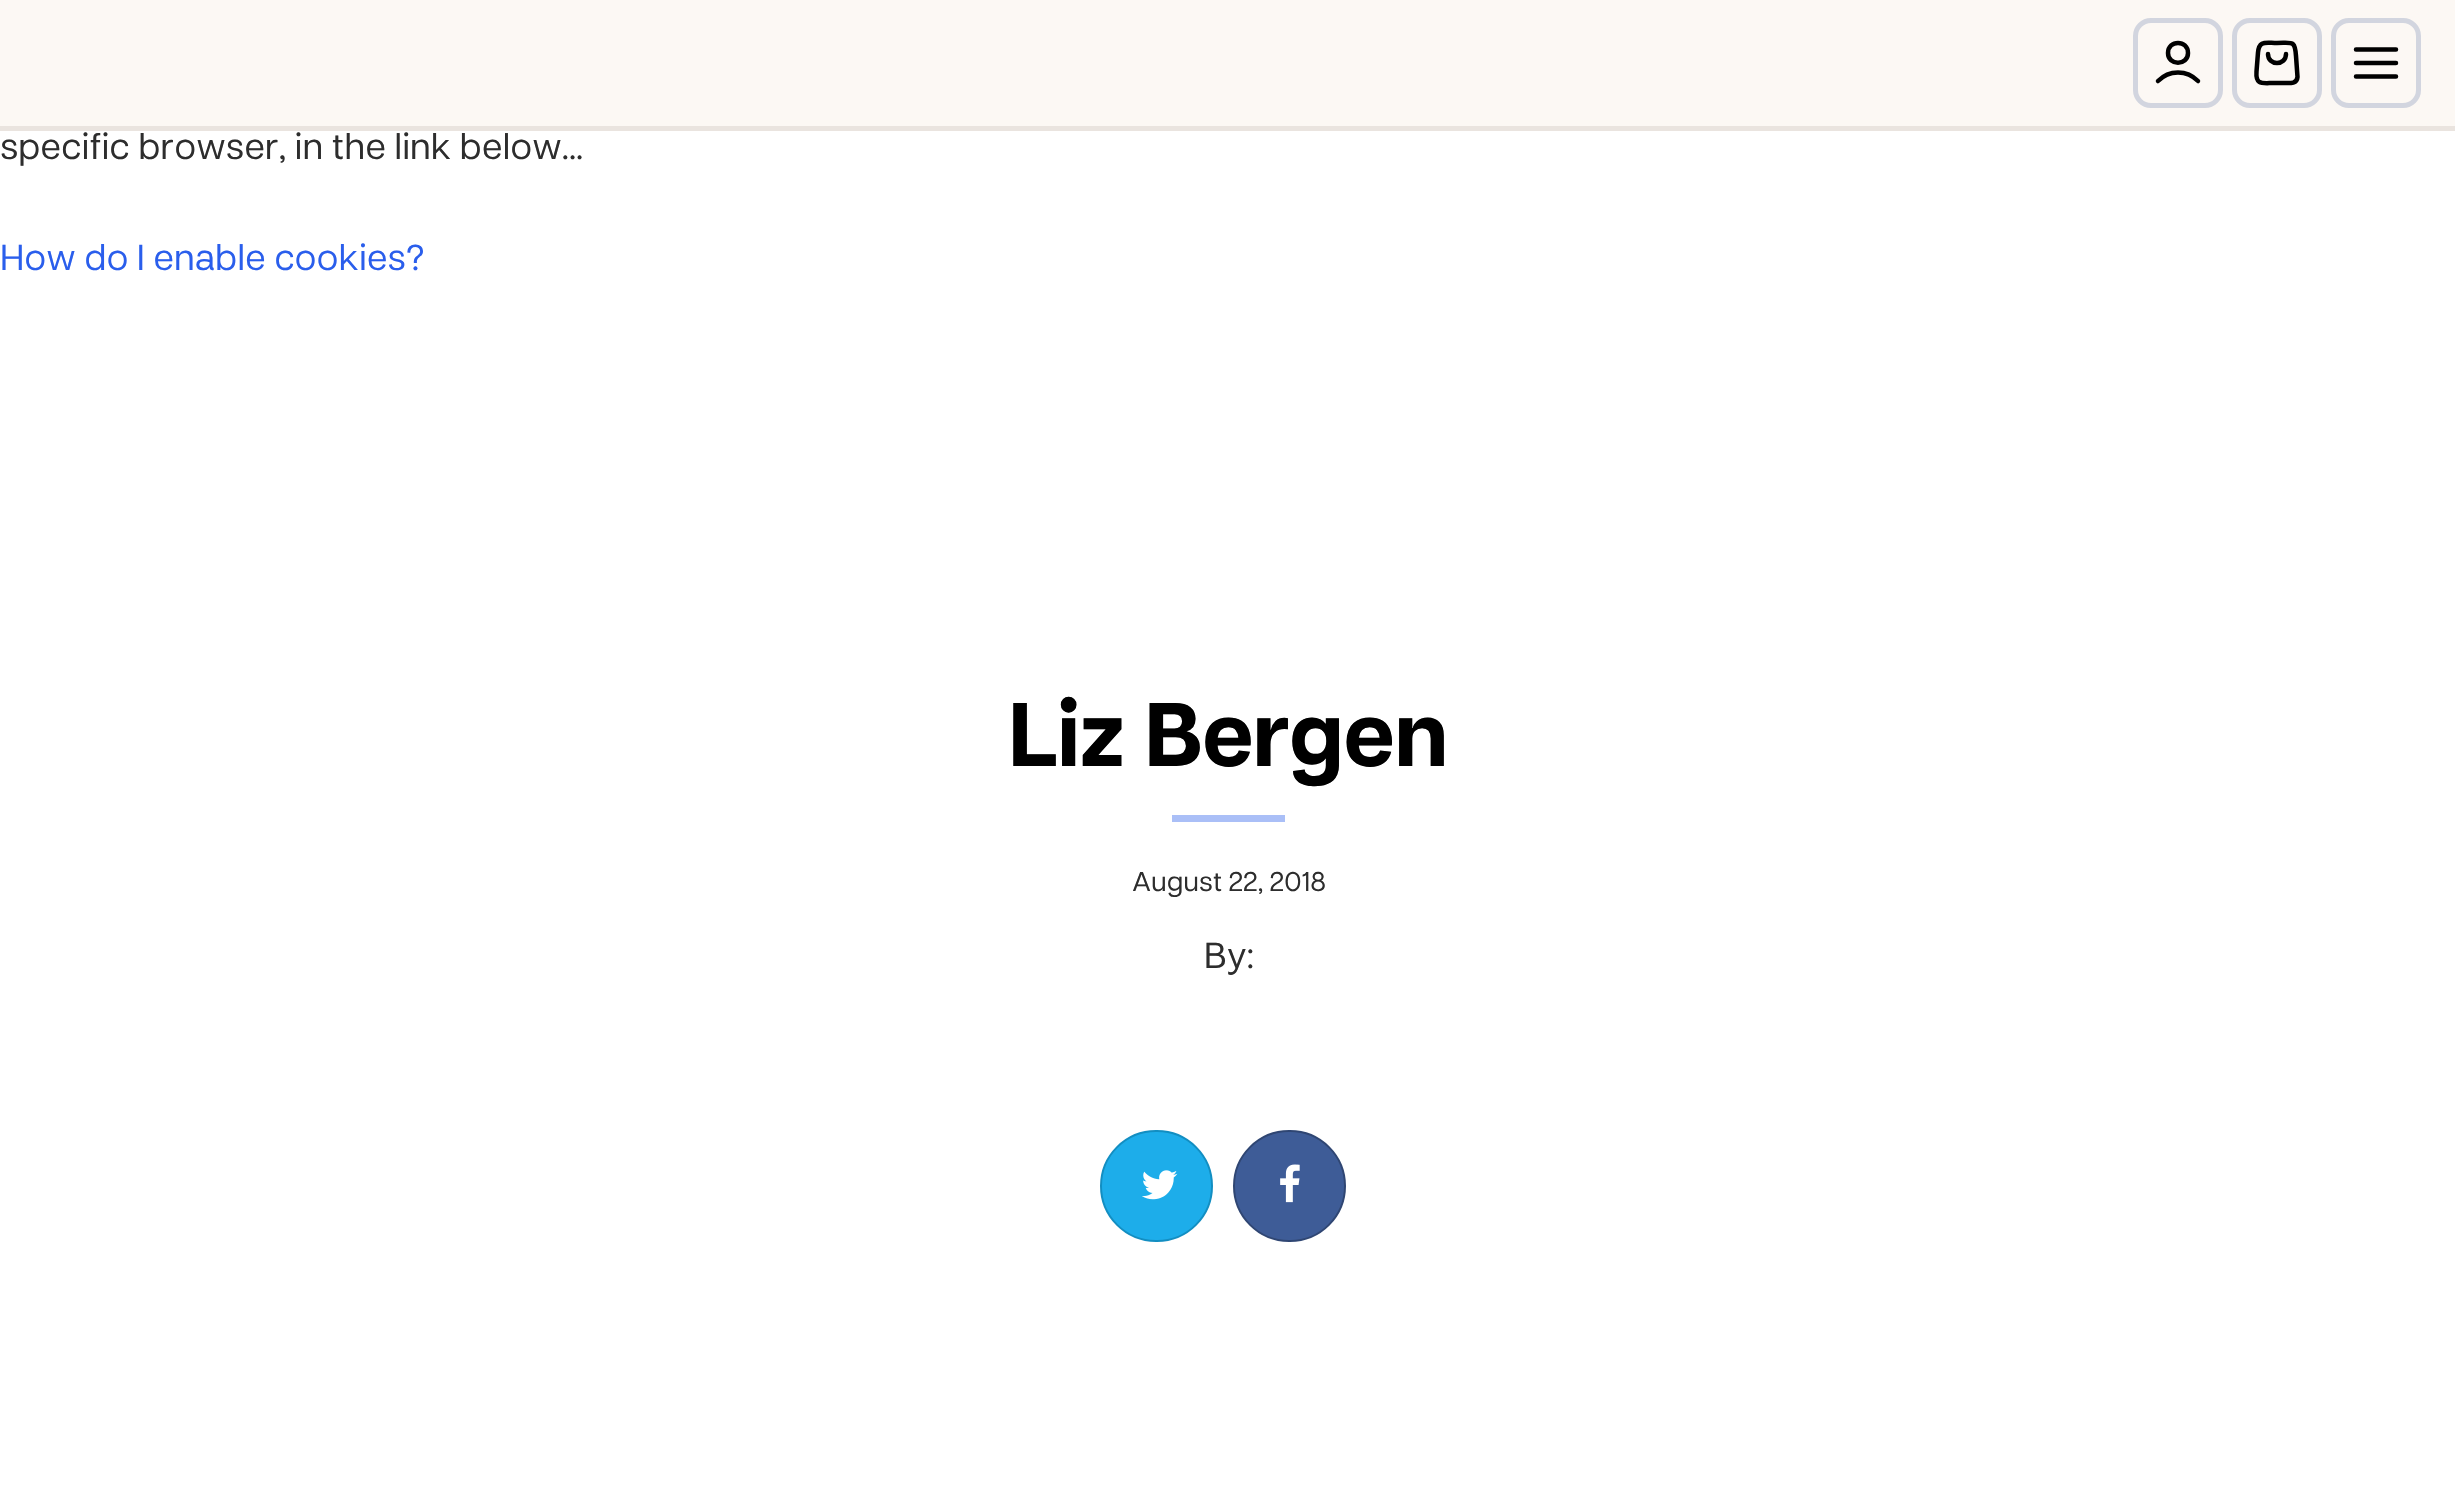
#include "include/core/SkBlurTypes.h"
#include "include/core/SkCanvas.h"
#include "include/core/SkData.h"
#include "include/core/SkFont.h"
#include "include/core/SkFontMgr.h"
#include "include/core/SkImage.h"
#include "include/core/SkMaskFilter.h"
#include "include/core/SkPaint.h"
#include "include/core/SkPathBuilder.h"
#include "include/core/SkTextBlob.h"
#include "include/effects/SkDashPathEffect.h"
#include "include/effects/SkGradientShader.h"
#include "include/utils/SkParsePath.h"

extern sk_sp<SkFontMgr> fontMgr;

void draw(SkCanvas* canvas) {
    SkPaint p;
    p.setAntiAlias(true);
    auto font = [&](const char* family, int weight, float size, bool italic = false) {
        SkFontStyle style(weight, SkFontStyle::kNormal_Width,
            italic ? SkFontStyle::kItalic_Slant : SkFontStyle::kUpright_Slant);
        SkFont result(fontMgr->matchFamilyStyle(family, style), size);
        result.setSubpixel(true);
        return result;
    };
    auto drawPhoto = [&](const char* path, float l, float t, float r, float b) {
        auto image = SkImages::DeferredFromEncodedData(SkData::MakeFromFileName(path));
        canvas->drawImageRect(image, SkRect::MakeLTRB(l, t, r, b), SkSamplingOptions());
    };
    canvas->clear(0xFFFFFFFF);
    p.setColor(0xFFFCF8F4);
    canvas->drawRect(SkRect::MakeLTRB(0, 0, 2455, 126), p);
    p.setColor(0xFFEAE4DF);
    canvas->drawRect(SkRect::MakeLTRB(0, 126, 2455, 131), p);
    p.setStyle(SkPaint::kStroke_Style);
    p.setStrokeWidth(5);
    p.setColor(0xFFD2D5DF);
    canvas->drawRoundRect(SkRect::MakeLTRB(2135.5f, 20.5f, 2220.5f, 105.5f), 15.5f, 15.5f, p);
    p.setStrokeWidth(4.5f);
    p.setStrokeCap(SkPaint::kRound_Cap);
    p.setStrokeJoin(SkPaint::kRound_Join);
    p.setColor(0xFF000000);
    canvas->drawPath(SkPathBuilder().moveTo(2158, 81).cubicTo(2169, 69.5f, 2187, 69.5f, 2198, 81).moveTo(2188, 53).cubicTo(2188, 66, 2168, 66, 2168, 53).cubicTo(2168, 39.5f, 2188, 39.5f, 2188, 53).close().detach(), p);
    p.setStrokeWidth(5);
    p.setStrokeCap(SkPaint::kButt_Cap);
    p.setStrokeJoin(SkPaint::kMiter_Join);
    p.setColor(0xFFD2D5DF);
    canvas->drawRoundRect(SkRect::MakeLTRB(2234.5f, 20.5f, 2319.5f, 105.5f), 15.5f, 15.5f, p);
    p.setStrokeWidth(4.5f);
    p.setStrokeCap(SkPaint::kRound_Cap);
    p.setStrokeJoin(SkPaint::kRound_Join);
    p.setColor(0xFF000000);
    canvas->drawPath(SkPathBuilder().moveTo(2286, 54).cubicTo(2286, 66, 2268, 66, 2268, 54).moveTo(2258, 52.5f).lineTo(2256.5f, 71.5f).cubicTo(2255.5f, 85.5f, 2262, 83, 2274, 83).lineTo(2283.5f, 83).cubicTo(2288.5f, 83, 2297, 84.5f, 2297.5f, 77).lineTo(2296, 56).cubicTo(2295, 40, 2292.5f, 43, 2277, 43).cubicTo(2265.5f, 43, 2259, 40, 2258, 52.5f).close().detach(), p);
    p.setStrokeWidth(5);
    p.setStrokeCap(SkPaint::kButt_Cap);
    p.setStrokeJoin(SkPaint::kMiter_Join);
    p.setColor(0xFFD2D5DF);
    canvas->drawRoundRect(SkRect::MakeLTRB(2333.5f, 20.5f, 2418.5f, 105.5f), 15.5f, 15.5f, p);
    p.setStrokeWidth(4.5f);
    p.setStrokeCap(SkPaint::kRound_Cap);
    p.setStrokeJoin(SkPaint::kRound_Join);
    p.setColor(0xFF000000);
    canvas->drawPath(SkPathBuilder().moveTo(2356, 63).lineTo(2396, 63).moveTo(2356, 49.5f).lineTo(2396, 49.5f).moveTo(2356, 76.5f).lineTo(2396, 76.5f).detach(), p);
    auto font1 = font("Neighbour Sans", 400, 36);
    p.setStyle(SkPaint::kFill_Style);
    p.setColor(0xFF2D2D2D);
    canvas->drawString("specific browser, in the link below...", 0, 159, font1, p);
    p.setColor(0xFF2A5EEC);
    canvas->drawString("How do I enable cookies?", 0, 270, font1, p);
    auto font2 = font("Neighbour Sans", 700, 90);
    p.setColor(0xFF000000);
    canvas->drawString("Liz Bergen", 1009, 766, font2, p);
    p.setColor(0xFFAABFF7);
    canvas->drawRect(SkRect::MakeLTRB(1172, 815, 1285, 822), p);
    auto font3 = font("Neighbour Sans", 400, 27);
    p.setColor(0xFF2D2D2D);
    canvas->drawString("August 22, 2018", 1132, 891, font3, p);
    canvas->drawString("By:", 1204, 968, font1, p);
    p.setColor(0xFF1DADEA);
    canvas->drawRoundRect(SkRect::MakeLTRB(1101, 1131, 1212, 1241), 55, 55, p);
    p.setStyle(SkPaint::kStroke_Style);
    p.setStrokeWidth(2);
    p.setStrokeCap(SkPaint::kButt_Cap);
    p.setStrokeJoin(SkPaint::kMiter_Join);
    p.setColor(0xFF128EC2);
    canvas->drawRoundRect(SkRect::MakeLTRB(1101, 1131, 1212, 1241), 55, 55, p);
    drawPhoto("media/1.png", 1142, 1170, 1178, 1200);
    p.setStyle(SkPaint::kFill_Style);
    p.setColor(0xFF3E5C97);
    canvas->drawRoundRect(SkRect::MakeLTRB(1234, 1131, 1345, 1241), 55, 55, p);
    p.setStyle(SkPaint::kStroke_Style);
    p.setColor(0xFF2F4673);
    canvas->drawRoundRect(SkRect::MakeLTRB(1234, 1131, 1345, 1241), 55, 55, p);
    drawPhoto("media/2.png", 1280, 1164, 1300, 1203);
}
